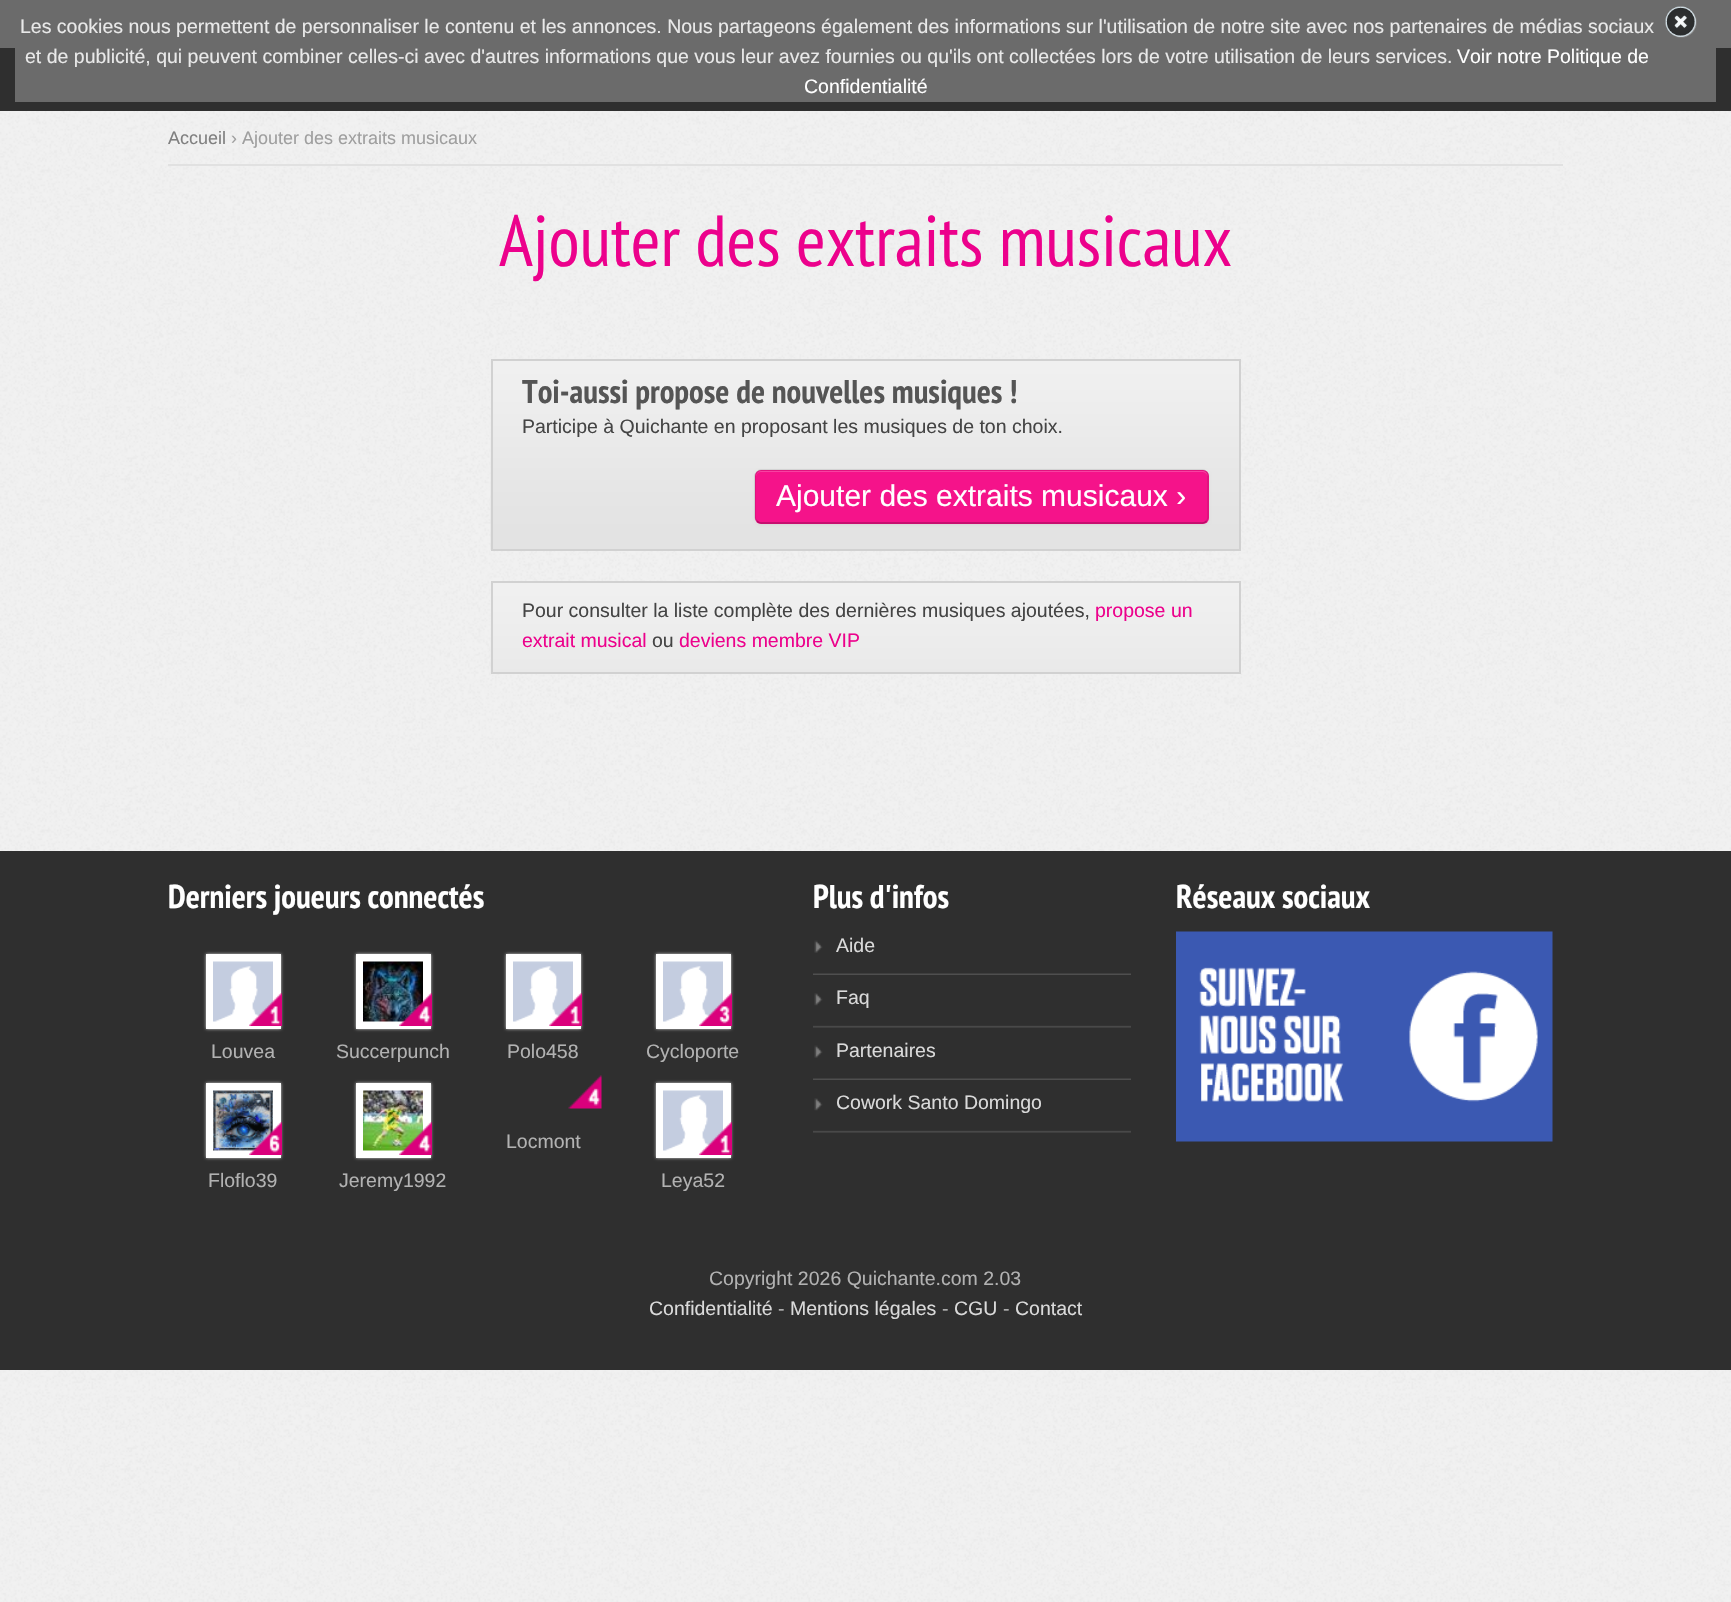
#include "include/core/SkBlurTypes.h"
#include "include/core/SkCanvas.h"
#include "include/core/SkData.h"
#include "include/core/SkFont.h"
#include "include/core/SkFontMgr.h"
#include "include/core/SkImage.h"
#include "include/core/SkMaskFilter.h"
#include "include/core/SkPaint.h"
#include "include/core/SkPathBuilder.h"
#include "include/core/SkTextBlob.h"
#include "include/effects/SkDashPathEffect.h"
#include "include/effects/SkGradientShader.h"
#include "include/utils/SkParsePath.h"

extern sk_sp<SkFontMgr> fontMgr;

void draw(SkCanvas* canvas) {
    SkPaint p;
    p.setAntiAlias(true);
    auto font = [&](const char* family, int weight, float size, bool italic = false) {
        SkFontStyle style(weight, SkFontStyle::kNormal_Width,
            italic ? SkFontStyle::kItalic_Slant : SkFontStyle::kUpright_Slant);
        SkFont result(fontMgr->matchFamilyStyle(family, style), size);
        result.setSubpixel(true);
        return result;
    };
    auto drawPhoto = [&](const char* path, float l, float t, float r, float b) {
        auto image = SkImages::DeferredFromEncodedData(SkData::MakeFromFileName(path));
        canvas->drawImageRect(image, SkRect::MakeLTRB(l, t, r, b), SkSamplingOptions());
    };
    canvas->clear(0xFFFFFFFF);
    drawPhoto("media/1.png", 0, 111, 1731, 1602);
    {
        const struct { float l, t, r, b; SkColor color; } items[] = {
            {0, 0, 1731, 48, 0xFF6B6B6B},
            {0, 48, 1731, 111, 0xFF2F2F2F},
            {15, 48, 1716, 102, 0xFF6B6B6B},
        };
        for (auto [l, t, r, b, color] : items) {
            p.setColor(color);
            canvas->drawRect(SkRect::MakeLTRB(l, t, r, b), p);
        }
    }
    auto font1 = font("Liberation Sans", 400, 19.5f);
    p.setColor(0xFFE9E9E9);
    canvas->drawString("Les cookies nous permettent de personnaliser le contenu et les annonces. Nous partageons également des informations sur l'utilisation de notre site avec nos partenaires de médias sociaux", 20, 33, font1, p);
    canvas->drawString("et de publicité, qui peuvent combiner celles-ci avec d'autres informations que vous leur avez fournies ou qu'ils ont collectées lors de votre utilisation de leurs services.", 25, 63, font1, p);
    p.setColor(0xFFFFFFFF);
    canvas->drawString("Voir notre Politique de", 1457, 63, font1, p);
    canvas->drawString("Confidentialité", 804, 93, font1, p);
    drawPhoto("media/2.png", 1665, 6, 1697, 38);
    p.setColor(0xFFE1E1E1);
    canvas->drawRect(SkRect::MakeLTRB(168, 164, 1563, 166), p);
    auto font2 = font("Liberation Sans", 400, 18);
    p.setColor(0xFF808080);
    canvas->drawString("Accueil", 168, 144, font2, p);
    p.setColor(0xFF9F9F9F);
    canvas->drawString("› Ajouter des extraits musicaux", 231, 144, font2, p);
    auto font3 = font("PT Sans Narrow", 400, 72);
    p.setColor(0xFFEC018C);
    canvas->drawString("Ajouter des extraits musicaux", 499, 266, font3, p);
    drawPhoto("media/3.png", 490, 360, 1239, 550);
    p.setStyle(SkPaint::kStroke_Style);
    p.setStrokeWidth(2);
    p.setColor(0xFFD1D1D1);
    canvas->drawRect(SkRect::MakeLTRB(492, 360, 1240, 550), p);
    auto font4 = font("PT Sans Narrow", 700, 33);
    p.setStyle(SkPaint::kFill_Style);
    p.setColor(0xFF555555);
    canvas->drawString("Toi-aussi propose de nouvelles musiques !", 522, 403, font4, p);
    p.setColor(0xFF444444);
    canvas->drawString("Participe à Quichante en proposant les musiques de ton choix.", 522, 433, font1, p);
    p.setColor(0x0D000000);
    p.setMaskFilter(SkMaskFilter::MakeBlur(kNormal_SkBlurStyle, 1.5f));
    canvas->drawRoundRect(SkRect::MakeLTRB(755, 471, 1209, 525), 6, 6, p);
    p.setMaskFilter(nullptr);
    p.setColor(0xFFF5138A);
    canvas->drawRoundRect(SkRect::MakeLTRB(755, 470, 1209, 524), 6, 6, p);
    p.setColor(0xFFF742A1);
    canvas->drawPath(SkPathBuilder().moveTo(760, 472).lineTo(1203, 472).cubicTo(1205, 472, 1208, 475, 1208, 477).cubicTo(1208, 474, 1206, 471, 1203, 471).lineTo(761, 471).cubicTo(758, 471, 756, 474, 756, 477).cubicTo(756, 475, 758, 472, 760, 472).close().detach(), p);
    p.setStyle(SkPaint::kStroke_Style);
    p.setStrokeWidth(1.5f);
    p.setColor(0x40000000);
    canvas->drawPath(SkPathBuilder().moveTo(1206.5f, 521).cubicTo(1205.5f, 522, 1204.5f, 523, 1203, 523).lineTo(760.5f, 523).cubicTo(759, 523, 758, 522, 757, 521).detach(), p);
    p.setColor(0x1A000000);
    canvas->drawPath(SkPathBuilder().moveTo(757, 521).cubicTo(756, 520, 755, 519, 755, 517.5f).lineTo(755, 475.5f).cubicTo(755, 474, 756, 473, 757, 472).cubicTo(758, 471, 759, 470, 760.5f, 470).lineTo(1203, 470).cubicTo(1204.5f, 470, 1205.5f, 471, 1206.5f, 472).cubicTo(1207.5f, 473, 1208, 474, 1208, 475.5f).lineTo(1208, 517.5f).cubicTo(1208, 519, 1207.5f, 520, 1206.5f, 521).detach(), p);
    auto font5 = font("Liberation Sans", 400, 30);
    p.setStyle(SkPaint::kFill_Style);
    p.setColor(0xFFFFFFFF);
    canvas->drawString("Ajouter des extraits musicaux ›", 776, 506, font5, p);
    drawPhoto("media/4.png", 490, 582, 1239, 673);
    p.setStyle(SkPaint::kStroke_Style);
    p.setStrokeWidth(2);
    p.setColor(0xFFD1D1D1);
    canvas->drawRect(SkRect::MakeLTRB(492, 582, 1240, 673), p);
    p.setStyle(SkPaint::kFill_Style);
    p.setColor(0xFF444444);
    canvas->drawString("Pour consulter la liste complète des dernières musiques ajoutées,", 522, 617, font1, p);
    p.setColor(0xFFEC018C);
    canvas->drawString("propose un", 1095, 617, font1, p);
    canvas->drawString("extrait musical", 522, 647, font1, p);
    p.setColor(0xFF444444);
    canvas->drawString("ou", 652, 647, font1, p);
    p.setColor(0xFFEC018C);
    canvas->drawString("deviens membre VIP", 679, 647, font1, p);
    p.setColor(0xFF2F2F2F);
    canvas->drawRect(SkRect::MakeLTRB(0, 851, 1731, 1370), p);
    p.setColor(0xFFFFFFFF);
    canvas->drawString("Derniers joueurs connectés", 168, 908, font4, p);
    p.setColor(0xFFCCCCCC);
    p.setMaskFilter(SkMaskFilter::MakeBlur(kNormal_SkBlurStyle, 1.5f));
    canvas->drawRect(SkRect::MakeLTRB(206, 954, 281, 1029), p);
    p.setMaskFilter(nullptr);
    p.setColor(0xFFFFFFFF);
    canvas->drawRect(SkRect::MakeLTRB(206, 954, 281, 1029), p);
    drawPhoto("media/5.png", 213, 961, 273, 1022);
    drawPhoto("media/6.png", 249, 993, 282, 1026);
    p.setColor(0xFFB2B2B2);
    canvas->drawString("Louvea", 211, 1058, font1, p);
    p.setColor(0xFFCCCCCC);
    p.setMaskFilter(SkMaskFilter::MakeBlur(kNormal_SkBlurStyle, 1.5f));
    canvas->drawRect(SkRect::MakeLTRB(356, 954, 431, 1029), p);
    p.setMaskFilter(nullptr);
    p.setColor(0xFFFFFFFF);
    canvas->drawRect(SkRect::MakeLTRB(356, 954, 431, 1029), p);
    drawPhoto("media/7.png", 363, 961, 423, 1022);
    drawPhoto("media/8.png", 399, 993, 432, 1026);
    p.setColor(0xFFB2B2B2);
    canvas->drawString("Succerpunch", 336, 1058, font1, p);
    p.setColor(0xFFCCCCCC);
    p.setMaskFilter(SkMaskFilter::MakeBlur(kNormal_SkBlurStyle, 1.5f));
    canvas->drawRect(SkRect::MakeLTRB(506, 954, 581, 1029), p);
    p.setMaskFilter(nullptr);
    p.setColor(0xFFFFFFFF);
    canvas->drawRect(SkRect::MakeLTRB(506, 954, 581, 1029), p);
    drawPhoto("media/5.png", 513, 961, 573, 1022);
    drawPhoto("media/6.png", 549, 993, 582, 1026);
    p.setColor(0xFFB2B2B2);
    canvas->drawString("Polo458", 507, 1058, font1, p);
    p.setColor(0xFFCCCCCC);
    p.setMaskFilter(SkMaskFilter::MakeBlur(kNormal_SkBlurStyle, 1.5f));
    canvas->drawRect(SkRect::MakeLTRB(656, 954, 731, 1029), p);
    p.setMaskFilter(nullptr);
    p.setColor(0xFFFFFFFF);
    canvas->drawRect(SkRect::MakeLTRB(656, 954, 731, 1029), p);
    drawPhoto("media/9.png", 663, 961, 723, 1022);
    drawPhoto("media/10.png", 699, 993, 732, 1026);
    p.setColor(0xFFB2B2B2);
    canvas->drawString("Cycloporte", 646, 1058, font1, p);
    drawPhoto("media/11.png", 568, 1075, 602, 1109);
    canvas->drawString("Locmont", 506, 1148, font1, p);
    p.setColor(0xFFCCCCCC);
    p.setMaskFilter(SkMaskFilter::MakeBlur(kNormal_SkBlurStyle, 1.5f));
    canvas->drawRect(SkRect::MakeLTRB(206, 1083, 281, 1158), p);
    p.setMaskFilter(nullptr);
    p.setColor(0xFFFFFFFF);
    canvas->drawRect(SkRect::MakeLTRB(206, 1083, 281, 1158), p);
    drawPhoto("media/12.png", 213, 1090, 273, 1151);
    drawPhoto("media/13.png", 249, 1122, 282, 1155);
    p.setColor(0xFFB2B2B2);
    canvas->drawString("Floflo39", 208, 1187, font1, p);
    p.setColor(0xFFCCCCCC);
    p.setMaskFilter(SkMaskFilter::MakeBlur(kNormal_SkBlurStyle, 1.5f));
    canvas->drawRect(SkRect::MakeLTRB(356, 1083, 431, 1158), p);
    p.setMaskFilter(nullptr);
    p.setColor(0xFFFFFFFF);
    canvas->drawRect(SkRect::MakeLTRB(356, 1083, 431, 1158), p);
    drawPhoto("media/14.png", 363, 1090, 423, 1151);
    drawPhoto("media/15.png", 399, 1122, 432, 1155);
    p.setColor(0xFFB2B2B2);
    canvas->drawString("Jeremy1992", 339, 1187, font1, p);
    p.setColor(0xFFCCCCCC);
    p.setMaskFilter(SkMaskFilter::MakeBlur(kNormal_SkBlurStyle, 1.5f));
    canvas->drawRect(SkRect::MakeLTRB(656, 1083, 731, 1158), p);
    p.setMaskFilter(nullptr);
    p.setColor(0xFFFFFFFF);
    canvas->drawRect(SkRect::MakeLTRB(656, 1083, 731, 1158), p);
    drawPhoto("media/16.png", 663, 1090, 723, 1151);
    drawPhoto("media/17.png", 699, 1122, 732, 1155);
    p.setColor(0xFFB2B2B2);
    canvas->drawString("Leya52", 661, 1187, font1, p);
    p.setColor(0xFFFFFFFF);
    canvas->drawString("Plus d'infos", 813, 908, font4, p);
    drawPhoto("media/18.png", 813, 940, 1131, 975);
    p.setColor(0xFFDADADA);
    canvas->drawString("Aide", 836, 952, font1, p);
    drawPhoto("media/19.png", 813, 993, 1131, 1028);
    canvas->drawString("Faq", 836, 1004, font1, p);
    drawPhoto("media/18.png", 813, 1045, 1131, 1080);
    canvas->drawString("Partenaires", 836, 1057, font1, p);
    drawPhoto("media/19.png", 813, 1098, 1131, 1133);
    canvas->drawString("Cowork Santo Domingo", 836, 1109, font1, p);
    p.setColor(0xFFFFFFFF);
    canvas->drawString("Réseaux sociaux", 1176, 908, font4, p);
    drawPhoto("media/20.png", 1176, 931, 1553, 1142);
    p.setColor(0xFFB2B2B2);
    canvas->drawString("Copyright 2026 Quichante.com 2.03", 709, 1285, font1, p);
    p.setColor(0xFFDADADA);
    canvas->drawString("Confidentialité", 649, 1315, font1, p);
    p.setColor(0xFFB2B2B2);
    canvas->drawString("-", 778, 1315, font1, p);
    p.setColor(0xFFDADADA);
    canvas->drawString("Mentions légales", 790, 1315, font1, p);
    p.setColor(0xFFB2B2B2);
    canvas->drawString("-", 942, 1315, font1, p);
    p.setColor(0xFFDADADA);
    canvas->drawString("CGU", 954, 1315, font1, p);
    p.setColor(0xFFB2B2B2);
    canvas->drawString("-", 1003, 1315, font1, p);
    p.setColor(0xFFDADADA);
    canvas->drawString("Contact", 1015, 1315, font1, p);
}
